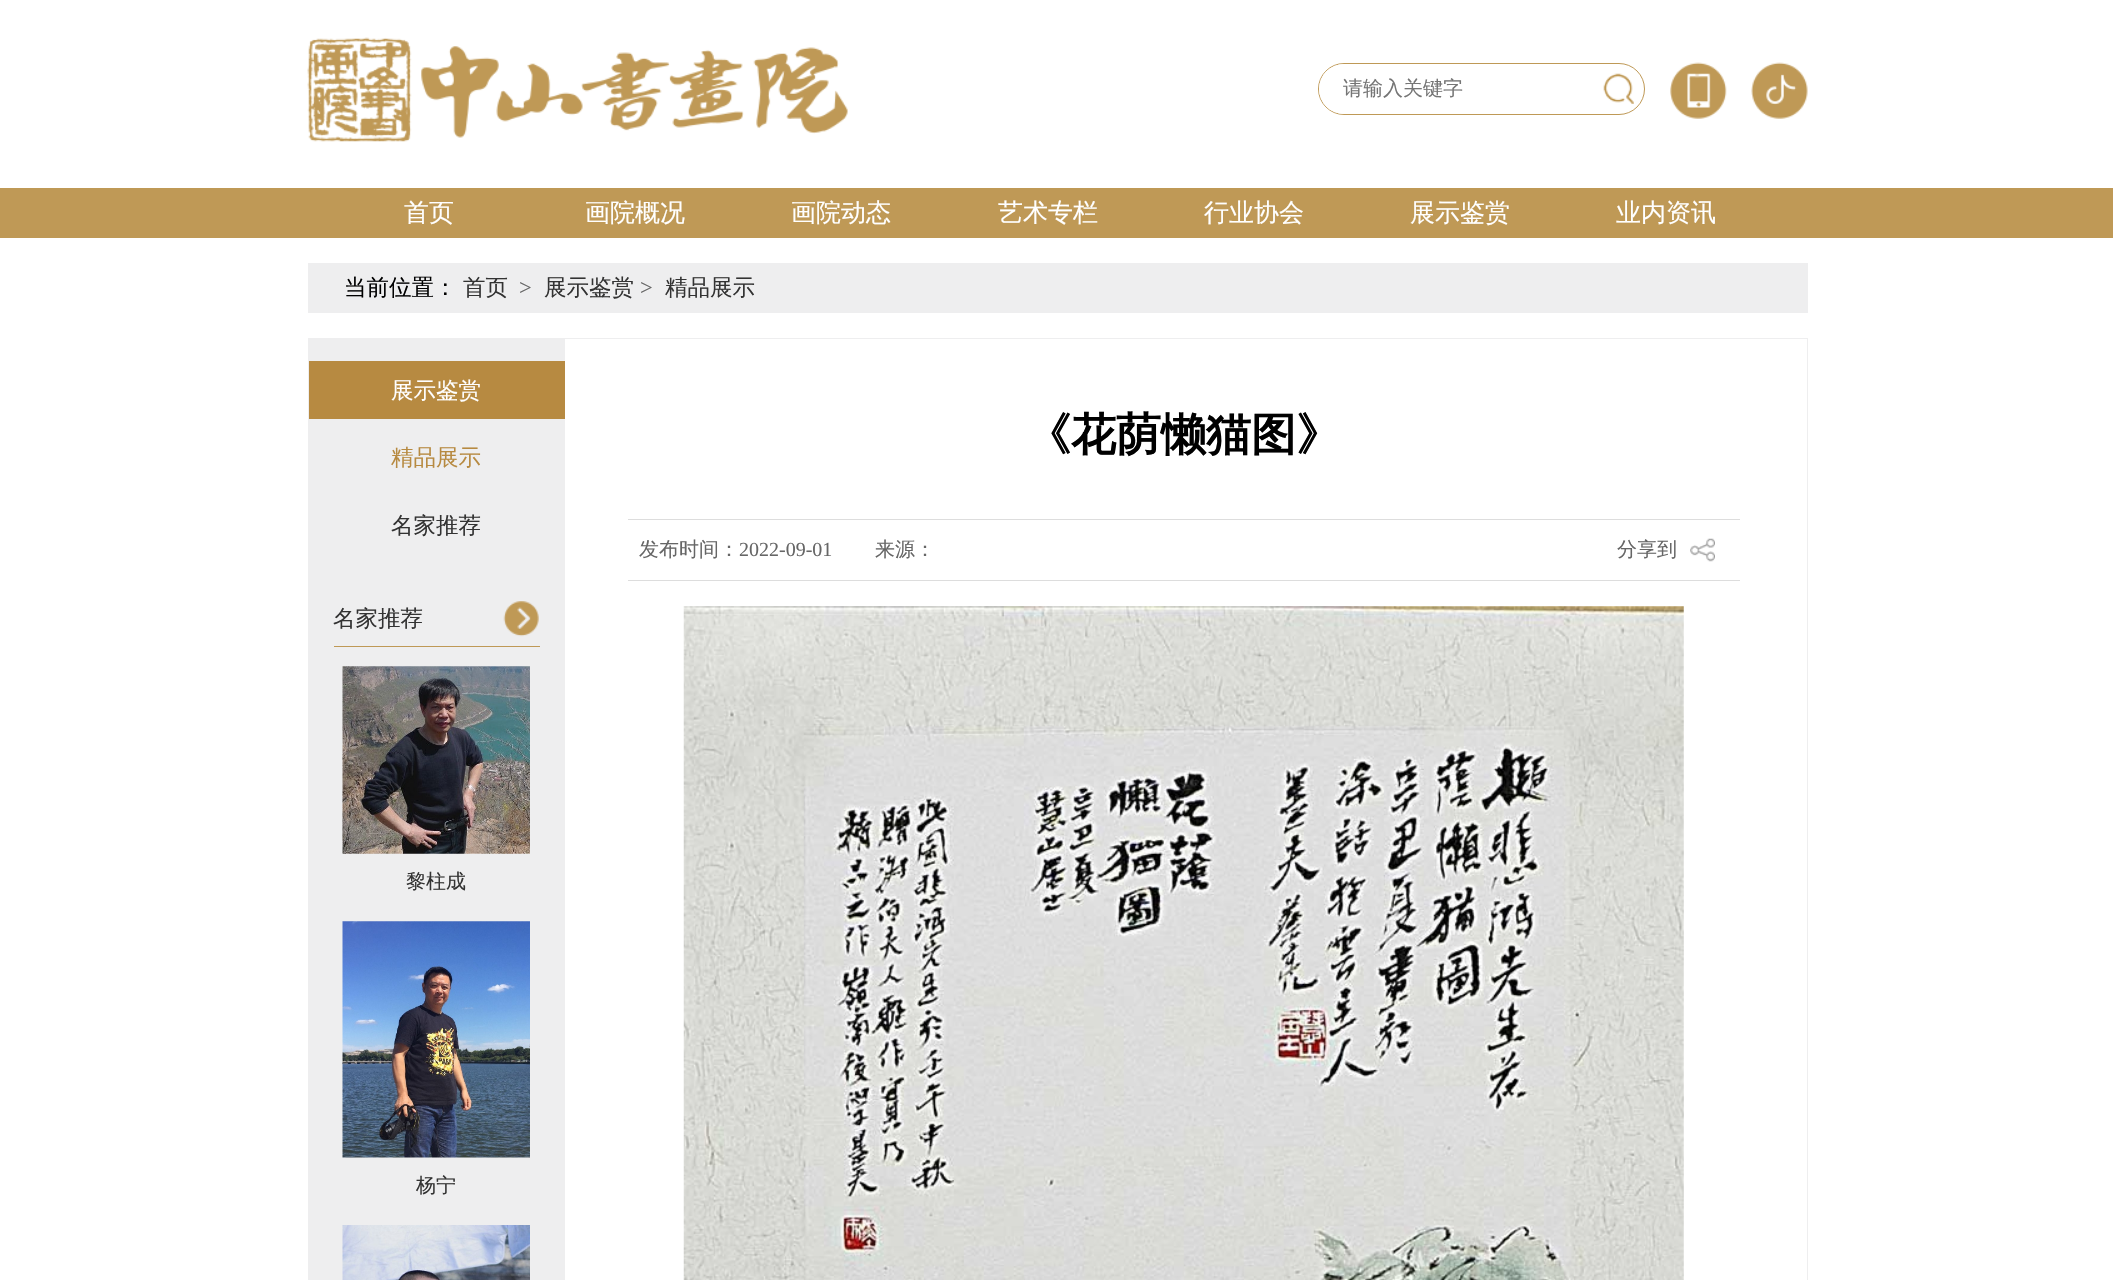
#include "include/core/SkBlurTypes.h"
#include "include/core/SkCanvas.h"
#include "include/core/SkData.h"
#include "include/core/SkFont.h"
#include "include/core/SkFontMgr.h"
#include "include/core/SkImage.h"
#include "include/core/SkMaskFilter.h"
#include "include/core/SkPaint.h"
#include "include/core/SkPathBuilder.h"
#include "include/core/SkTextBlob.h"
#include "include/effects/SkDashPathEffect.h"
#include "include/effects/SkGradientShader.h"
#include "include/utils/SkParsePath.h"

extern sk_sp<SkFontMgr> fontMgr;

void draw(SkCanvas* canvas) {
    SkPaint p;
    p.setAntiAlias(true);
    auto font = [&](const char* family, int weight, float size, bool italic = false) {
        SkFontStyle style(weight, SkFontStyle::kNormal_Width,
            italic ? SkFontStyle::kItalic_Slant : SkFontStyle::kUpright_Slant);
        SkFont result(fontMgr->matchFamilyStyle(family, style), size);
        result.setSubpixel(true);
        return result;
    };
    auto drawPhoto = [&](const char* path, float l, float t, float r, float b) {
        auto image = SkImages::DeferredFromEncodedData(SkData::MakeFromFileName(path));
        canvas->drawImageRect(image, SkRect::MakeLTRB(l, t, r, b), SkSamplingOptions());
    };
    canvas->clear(0xFFFFFFFF);
    drawPhoto("media/1.png", 307, 37, 848, 142);
    p.setStyle(SkPaint::kStroke_Style);
    p.setStrokeWidth(1);
    p.setColor(0xFFBF9956);
    canvas->drawRoundRect(SkRect::MakeLTRB(1318.5f, 63.5f, 1644.5f, 114.5f), 25.5f, 25.5f, p);
    p.setStyle(SkPaint::kFill_Style);
    p.setColor(0xFFFFFFFF);
    canvas->drawRoundRect(SkRect::MakeLTRB(1319, 64, 1594, 114), 25, 25, p);
    auto font1 = font("WenQuanYi Zen Hei", 500, 20);
    p.setColor(0xFF757575);
    canvas->drawString("请输入关键字", 1343, 95, font1, p);
    drawPhoto("media/2.png", 1603, 73, 1634, 104);
    drawPhoto("media/3.png", 1670, 62, 1727, 119);
    drawPhoto("media/4.png", 1751, 62, 1808, 119);
    p.setColor(0xFFBF9956);
    canvas->drawRect(SkRect::MakeLTRB(0, 188, 2113, 238), p);
    auto font2 = font("WenQuanYi Zen Hei", 500, 25);
    p.setColor(0xFFFFFFFF);
    {
        const struct { const char* s; float x, y; } items[] = {
            {"首页", 404, 221},
            {"画院概况", 585, 221},
            {"画院动态", 791, 221},
            {"艺术专栏", 998, 221},
            {"行业协会", 1204, 221},
            {"展示鉴赏", 1410, 221},
            {"业内资讯", 1616, 221},
        };
        for (auto [s, x, y] : items) {
            canvas->drawString(s, x, y, font2, p);
        }
    }
    p.setColor(0xFFEEEEEF);
    canvas->drawRect(SkRect::MakeLTRB(308, 263, 1808, 313), p);
    auto font3 = font("WenQuanYi Zen Hei", 500, 22.5f);
    p.setColor(0xFF000000);
    canvas->drawString("当前位置：", 344, 295, font3, p);
    p.setColor(0xFF333333);
    canvas->drawString("首页", 463, 295, font3, p);
    auto font4 = font("Liberation Serif", 400, 22.5f);
    p.setColor(0xFF666666);
    canvas->drawString(">", 519, 295, font4, p);
    p.setColor(0xFF333333);
    canvas->drawString("展示鉴赏", 544, 295, font3, p);
    p.setColor(0xFF666666);
    canvas->drawString(">", 640, 295, font4, p);
    p.setColor(0xFF333333);
    canvas->drawString("精品展示", 665, 295, font3, p);
    p.setStyle(SkPaint::kStroke_Style);
    p.setColor(0xFFEEEEEF);
    canvas->drawRect(SkRect::MakeLTRB(308.5f, 338.5f, 1807.5f, 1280.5f), p);
    p.setStyle(SkPaint::kFill_Style);
    canvas->drawRect(SkRect::MakeLTRB(309, 339, 565, 1280), p);
    p.setColor(0xFFB78A41);
    canvas->drawRect(SkRect::MakeLTRB(309, 361, 565, 419), p);
    p.setColor(0xFFFFFFFF);
    canvas->drawString("展示鉴赏", 391, 398, font3, p);
    p.setColor(0xFFB78A41);
    canvas->drawString("精品展示", 391, 465, font3, p);
    p.setColor(0xFF333333);
    canvas->drawString("名家推荐", 391, 533, font3, p);
    p.setColor(0xFFBF9956);
    canvas->drawRect(SkRect::MakeLTRB(334, 646, 540, 647), p);
    p.setColor(0xFF333333);
    canvas->drawString("名家推荐", 333, 626, font3, p);
    drawPhoto("media/5.png", 503, 601, 539, 637);
    drawPhoto("media/6.png", 342, 666, 530, 854);
    canvas->drawString("黎柱成", 406, 888, font1, p);
    drawPhoto("media/7.png", 342, 921, 530, 1158);
    canvas->drawString("杨宁", 416, 1192, font1, p);
    drawPhoto("media/8.png", 342, 1225, 530, 1280);
    auto font5 = font("WenQuanYi Zen Hei", 700, 45);
    p.setColor(0xFF000000);
    canvas->drawString("《花荫懒猫图》", 1026, 450, font5, p);
    p.setColor(0xFFDDDDDD);
    canvas->drawRect(SkRect::MakeLTRB(628, 519, 1740, 520), p);
    canvas->drawRect(SkRect::MakeLTRB(628, 580, 1740, 581), p);
    p.setColor(0xFF666666);
    canvas->drawString("发布时间：", 639, 556, font1, p);
    auto font6 = font("Liberation Serif", 400, 20);
    canvas->drawString("2022-09-01", 739, 556, font6, p);
    canvas->drawString("来源：", 875, 556, font1, p);
    canvas->drawString("分享到", 1617, 556, font1, p);
    drawPhoto("media/9.png", 1690, 538, 1715, 562);
    drawPhoto("media/10.png", 683, 606, 1684, 1280);
}
